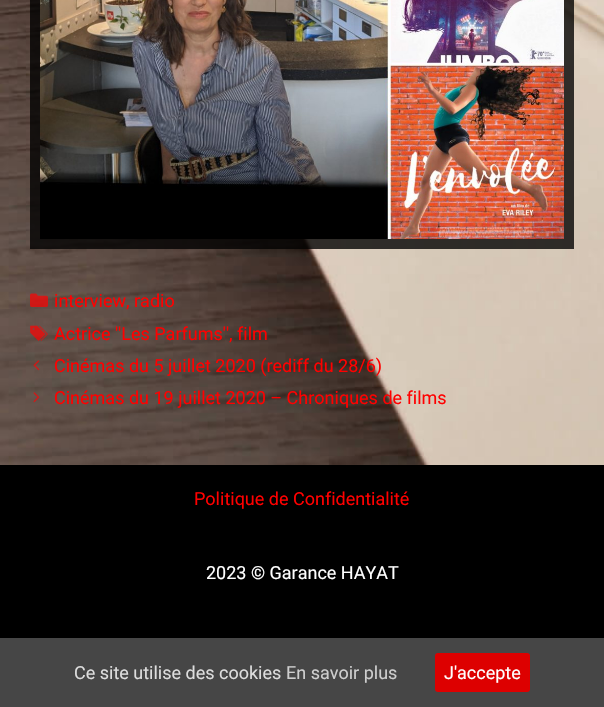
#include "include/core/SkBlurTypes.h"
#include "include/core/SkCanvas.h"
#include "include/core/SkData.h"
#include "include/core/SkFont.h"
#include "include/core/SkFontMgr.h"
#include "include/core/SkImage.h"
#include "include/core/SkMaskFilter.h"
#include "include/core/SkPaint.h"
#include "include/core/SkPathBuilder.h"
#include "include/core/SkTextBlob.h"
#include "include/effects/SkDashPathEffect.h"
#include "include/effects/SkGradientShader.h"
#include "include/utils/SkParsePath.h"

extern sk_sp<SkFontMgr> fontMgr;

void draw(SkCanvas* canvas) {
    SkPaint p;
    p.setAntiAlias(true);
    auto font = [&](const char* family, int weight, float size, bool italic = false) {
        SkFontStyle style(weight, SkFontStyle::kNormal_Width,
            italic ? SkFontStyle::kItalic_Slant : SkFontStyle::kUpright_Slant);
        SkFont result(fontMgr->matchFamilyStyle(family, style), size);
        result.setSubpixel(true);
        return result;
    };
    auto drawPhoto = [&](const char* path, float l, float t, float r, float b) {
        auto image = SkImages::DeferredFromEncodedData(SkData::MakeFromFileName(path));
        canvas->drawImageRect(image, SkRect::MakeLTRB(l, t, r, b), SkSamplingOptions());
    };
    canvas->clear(0xFFFFFFFF);
    drawPhoto("media/1.png", 0, 0, 604, 465);
    p.setColor(0xC9000000);
    canvas->drawRect(SkRect::MakeLTRB(30, 0, 574, 249), p);
    drawPhoto("media/2.png", 40, 0, 564, 239);
    drawPhoto("media/3.png", 30, 293, 48, 307);
    auto font1 = font("Roboto", 400, 18);
    p.setColor(0xFFFF0000);
    canvas->drawString("interview, radio", 54, 307, font1, p);
    drawPhoto("media/4.png", 30, 325, 48, 341);
    canvas->drawString("Actrice ''Les Parfums'', film", 54, 340, font1, p);
    drawPhoto("media/5.png", 33, 360, 40, 371);
    canvas->drawString("Cinémas du 5 juillet 2020 (rediff du 28/6)", 54, 372, font1, p);
    drawPhoto("media/6.png", 33, 392, 40, 403);
    canvas->drawString("Cinémas du 19 juillet 2020 – Chroniques de films", 54, 404, font1, p);
    p.setColor(0xFF000000);
    canvas->drawRect(SkRect::MakeLTRB(0, 465, 604, 638), p);
    p.setColor(0xFFFF0000);
    canvas->drawString("Politique de Confidentialité", 194, 505, font1, p);
    p.setColor(0xFFFFFFFF);
    canvas->drawString("2023 © Garance HAYAT", 206, 579, font1, p);
    p.setColor(0xFF464646);
    canvas->drawRect(SkRect::MakeLTRB(0, 638, 604, 707), p);
    p.setColor(0xFFDDDDDD);
    canvas->drawString("Ce site utilise des cookies", 74, 679, font1, p);
    p.setColor(0xFFCECECE);
    canvas->drawString("En savoir plus", 286, 679, font1, p);
    p.setColor(0xFFDD0000);
    canvas->drawRoundRect(SkRect::MakeLTRB(435, 653, 530, 692), 3, 3, p);
    p.setColor(0xFFFFFFFF);
    canvas->drawString("J'accepte", 444, 679, font1, p);
}
